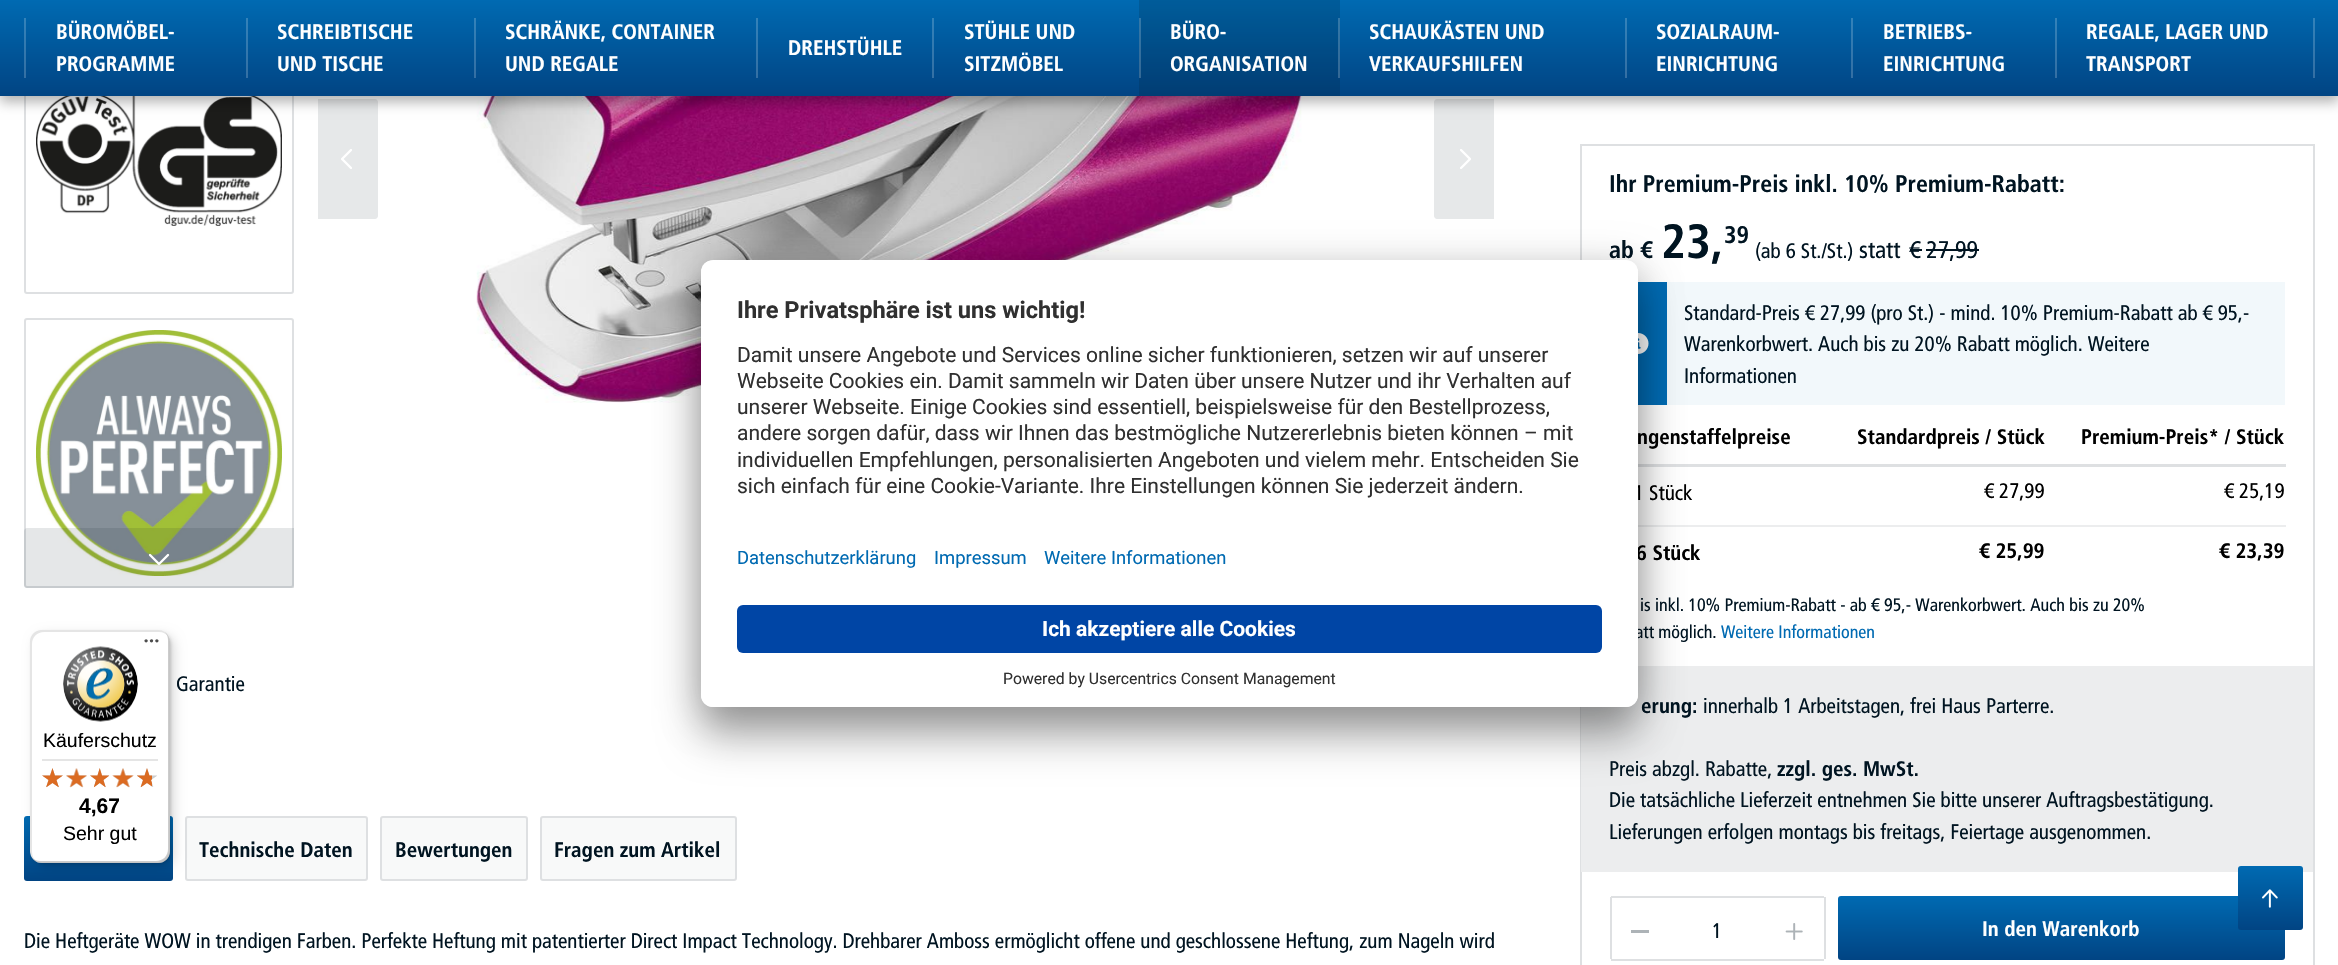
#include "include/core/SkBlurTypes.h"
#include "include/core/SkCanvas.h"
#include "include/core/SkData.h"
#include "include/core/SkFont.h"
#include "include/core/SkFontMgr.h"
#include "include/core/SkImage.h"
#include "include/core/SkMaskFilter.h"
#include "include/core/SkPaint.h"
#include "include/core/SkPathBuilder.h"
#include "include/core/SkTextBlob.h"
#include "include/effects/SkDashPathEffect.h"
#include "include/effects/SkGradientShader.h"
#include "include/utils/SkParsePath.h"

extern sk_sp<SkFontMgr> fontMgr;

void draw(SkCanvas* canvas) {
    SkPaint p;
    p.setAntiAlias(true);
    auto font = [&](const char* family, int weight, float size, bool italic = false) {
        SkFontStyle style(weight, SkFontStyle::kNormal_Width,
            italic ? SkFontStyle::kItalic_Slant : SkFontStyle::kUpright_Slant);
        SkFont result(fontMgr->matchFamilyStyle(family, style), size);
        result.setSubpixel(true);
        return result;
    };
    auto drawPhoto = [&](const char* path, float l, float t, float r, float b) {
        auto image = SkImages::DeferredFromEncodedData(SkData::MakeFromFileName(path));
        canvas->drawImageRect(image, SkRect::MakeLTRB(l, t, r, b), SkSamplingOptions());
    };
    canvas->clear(0xFFFFFFFF);
    p.setStyle(SkPaint::kStroke_Style);
    p.setStrokeWidth(2);
    p.setColor(0xFFDEE0E2);
    canvas->drawRoundRect(SkRect::MakeLTRB(25, 25, 293, 293), 2, 2, p);
    drawPhoto("media/1.png", 36, 96, 282, 226);
    drawPhoto("media/4.png", 476, 96, 1329, 403);
    p.setStyle(SkPaint::kFill_Style);
    p.setColor(0xFFE6E8E9);
    canvas->drawPath(SkPathBuilder().moveTo(318, 99).lineTo(375, 99).cubicTo(376.5f, 99, 378, 100.5f, 378, 102).lineTo(378, 216).cubicTo(378, 217.5f, 376.5f, 219, 375, 219).lineTo(318, 219).close().detach(), p);
    canvas->drawPath(SkPathBuilder().moveTo(1437, 99).lineTo(1494, 99).lineTo(1494, 219).lineTo(1437, 219).cubicTo(1435.5f, 219, 1434, 217.5f, 1434, 216).lineTo(1434, 102).cubicTo(1434, 100.5f, 1435.5f, 99, 1437, 99).close().detach(), p);
    p.setColor(0x4D000000);
    p.setMaskFilter(SkMaskFilter::MakeBlur(kNormal_SkBlurStyle, 6));
    canvas->drawRect(SkRect::MakeLTRB(0, 6, 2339, 102), p);
    p.setMaskFilter(nullptr);
    {
        const SkColor colors[] = {0xFF006AB2, 0xFF014483};
        const float stops[] = {0, 1};
        const SkPoint ends[] = {{1169, 0}, {1169, 96}};
        p.setShader(SkGradientShader::MakeLinear(ends, colors, stops, 2, SkTileMode::kClamp));
        p.setAlpha(255);
    }
    canvas->drawRect(SkRect::MakeLTRB(0, 0, 2338, 96), p);
    {
        const SkColor colors[] = {0xFF3388C1, 0xFF34699C};
        const float stops[] = {0, 1};
        const SkPoint ends[] = {{1169, 0}, {1169, 96}};
        p.setShader(SkGradientShader::MakeLinear(ends, colors, stops, 2, SkTileMode::kClamp));
        p.setAlpha(255);
    }
    canvas->drawRect(SkRect::MakeLTRB(2313, 18, 2315, 78), p);
    canvas->drawRect(SkRect::MakeLTRB(2055, 18, 2057, 78), p);
    canvas->drawRect(SkRect::MakeLTRB(1851, 18, 1853, 78), p);
    canvas->drawRect(SkRect::MakeLTRB(1625, 18, 1627, 78), p);
    canvas->drawRect(SkRect::MakeLTRB(474, 18, 476, 78), p);
    p.setShader(nullptr);
    p.setColor(0x33FFFFFF);
    canvas->drawRect(SkRect::MakeLTRB(24, 18, 26, 78), p);
    auto font1 = font("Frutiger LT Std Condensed", 700, 21);
    p.setColor(0xFFFFFFFF);
    canvas->drawString("BÜROMÖBEL-", 56, 39, font1, p);
    canvas->drawString("PROGRAMME", 56, 71, font1, p);
    p.setColor(0x33FFFFFF);
    canvas->drawRect(SkRect::MakeLTRB(246, 18, 248, 78), p);
    p.setColor(0xFFFFFFFF);
    {
        const struct { const char* s; float x, y; } items[] = {
            {"SCHREIBTISCHE", 277, 39},
            {"UND TISCHE", 277, 71},
            {"SCHRÄNKE, CONTAINER", 505, 39},
            {"UND REGALE", 505, 71},
        };
        for (auto [s, x, y] : items) {
            canvas->drawString(s, x, y, font1, p);
        }
    }
    p.setColor(0x33FFFFFF);
    canvas->drawRect(SkRect::MakeLTRB(756, 18, 758, 78), p);
    p.setColor(0xFFFFFFFF);
    canvas->drawString("DREHSTÜHLE", 788, 55, font1, p);
    p.setColor(0x33FFFFFF);
    canvas->drawRect(SkRect::MakeLTRB(932, 18, 934, 78), p);
    p.setColor(0xFFFFFFFF);
    canvas->drawString("STÜHLE UND", 964, 39, font1, p);
    canvas->drawString("SITZMÖBEL", 964, 71, font1, p);
    p.setColor(0x29001421);
    canvas->drawRect(SkRect::MakeLTRB(1139, 0, 1340, 96), p);
    p.setColor(0x33FFFFFF);
    canvas->drawRect(SkRect::MakeLTRB(1139, 18, 1141, 78), p);
    p.setColor(0xFFFFFFFF);
    canvas->drawString("BÜRO-", 1170, 39, font1, p);
    canvas->drawString("ORGANISATION", 1170, 71, font1, p);
    p.setColor(0x33FFFFFF);
    canvas->drawRect(SkRect::MakeLTRB(1338, 18, 1340, 78), p);
    p.setColor(0xFFFFFFFF);
    {
        const struct { const char* s; float x, y; } items[] = {
            {"SCHAUKÄSTEN UND", 1369, 39},
            {"VERKAUFSHILFEN", 1369, 71},
            {"SOZIALRAUM-", 1656, 39},
            {"EINRICHTUNG", 1656, 71},
            {"BETRIEBS-", 1883, 39},
            {"EINRICHTUNG", 1883, 71},
            {"REGALE, LAGER UND", 2086, 39},
            {"TRANSPORT", 2086, 71},
        };
        for (auto [s, x, y] : items) {
            canvas->drawString(s, x, y, font1, p);
        }
    }
    p.setStyle(SkPaint::kStroke_Style);
    p.setColor(0xFFDEE0E2);
    canvas->drawRoundRect(SkRect::MakeLTRB(25, 319, 293, 587), 2, 2, p);
    drawPhoto("media/2.png", 36, 330, 282, 576);
    p.setStyle(SkPaint::kFill_Style);
    p.setColor(0x1A001421);
    canvas->drawPath(SkPathBuilder().moveTo(27, 528).lineTo(294, 528).lineTo(294, 588).lineTo(27, 588).cubicTo(25.5f, 588, 24, 586.5f, 24, 585).lineTo(24, 531).cubicTo(24, 529.5f, 25.5f, 528, 27, 528).close().detach(), p);
    drawPhoto("media/3.png", 148, 553, 170, 565);
    drawPhoto("media/5.png", 341, 149, 352, 169);
    drawPhoto("media/6.png", 1460, 149, 1471, 169);
    p.setStyle(SkPaint::kStroke_Style);
    p.setColor(0xFFDEE0E2);
    canvas->drawRect(SkRect::MakeLTRB(1581, 145, 2314, 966), p);
    auto font2 = font("Frutiger LT Std Condensed", 700, 24);
    p.setStyle(SkPaint::kFill_Style);
    p.setColor(0xFF001421);
    canvas->drawString("Ihr Premium-Preis inkl. 10% Premium-Rabatt:", 1609, 192, font2, p);
    canvas->drawString("ab €", 1609, 258, font2, p);
    auto font3 = font("Frutiger LT Std Condensed", 700, 48);
    canvas->drawString("23,", 1661, 258, font3, p);
    canvas->drawString("39", 1724, 243, font2, p);
    auto font4 = font("Frutiger LT Std Condensed", 400, 21);
    canvas->drawString("(ab 6 St./St.)", 1755, 258, font4, p);
    auto font5 = font("Frutiger LT Std Condensed", 400, 24);
    canvas->drawString("statt", 1859, 258, font5, p);
    canvas->drawString("€ 27,99", 1909, 258, font5, p);
    {
        const struct { float l, t, r, b; SkColor color; } items[] = {
            {1910, 249, 1922, 251, 0xFF001421},
            {1926, 249, 1979, 251, 0xFF001421},
            {1638, 282, 1667, 405, 0xFF006AB2},
        };
        for (auto [l, t, r, b, color] : items) {
            p.setColor(color);
            canvas->drawRect(SkRect::MakeLTRB(l, t, r, b), p);
        }
    }
    drawPhoto("media/7.png", 1638, 333, 1649, 354);
    p.setColor(0xFFF2F8FB);
    canvas->drawRect(SkRect::MakeLTRB(1667, 282, 2285, 405), p);
    p.setColor(0xFF001421);
    {
        const struct { const char* s; float x, y; } items[] = {
            {"Standard-Preis € 27,99 (pro St.) - mind. 10% Premium-Rabatt ab € 95,-", 1684, 320},
            {"Warenkorbwert. Auch bis zu 20% Rabatt möglich. Weitere", 1684, 351},
            {"Informationen", 1684, 383},
        };
        for (auto [s, x, y] : items) {
            canvas->drawString(s, x, y, font4, p);
        }
    }
    p.setColor(0xFFDEE0E2);
    canvas->drawRect(SkRect::MakeLTRB(1638, 464, 2286, 467), p);
    p.setColor(0xFF000000);
    {
        const struct { const char* s; float x, y; } items[] = {
            {"ngenstaffelpreise", 1637, 444},
            {"Standardpreis / Stück", 1857, 444},
            {"Premium-Preis* / Stück", 2081, 444},
        };
        for (auto [s, x, y] : items) {
            canvas->drawString(s, x, y, font1, p);
        }
    }
    {
        const struct { const char* s; float x, y; } items[] = {
            {"1 Stück", 1634, 500},
            {"€ 27,99", 1984, 498},
            {"€ 25,19", 2224, 498},
        };
        for (auto [s, x, y] : items) {
            canvas->drawString(s, x, y, font4, p);
        }
    }
    p.setColor(0xFFECEDEE);
    canvas->drawRect(SkRect::MakeLTRB(1638, 525, 2286, 527), p);
    p.setColor(0xFF000000);
    {
        const struct { const char* s; float x, y; } items[] = {
            {"6 Stück", 1636, 560},
            {"€ 25,99", 1979, 558},
            {"€ 23,39", 2219, 558},
        };
        for (auto [s, x, y] : items) {
            canvas->drawString(s, x, y, font1, p);
        }
    }
    auto font6 = font("Frutiger LT Std Condensed", 400, 18);
    p.setColor(0xFF001421);
    canvas->drawString("is inkl. 10% Premium-Rabatt - ab € 95,- Warenkorbwert. Auch bis zu 20%", 1640, 611, font6, p);
    canvas->drawString("att möglich.", 1635, 638, font6, p);
    p.setColor(0xFF006AB2);
    canvas->drawString("Weitere Informationen", 1721, 638, font6, p);
    p.setColor(0xFFECEDEE);
    canvas->drawRect(SkRect::MakeLTRB(1581, 666, 2313, 872), p);
    p.setColor(0xFF001421);
    canvas->drawString("erung:", 1641, 713, font1, p);
    canvas->drawString("innerhalb 1 Arbeitstagen, frei Haus Parterre.", 1703, 713, font4, p);
    canvas->drawString("Preis abzgl. Rabatte,", 1609, 776, font4, p);
    canvas->drawString("zzgl. ges. MwSt.", 1777, 776, font1, p);
    canvas->drawString("Die tatsächliche Lieferzeit entnehmen Sie bitte unserer Auftragsbestätigung.", 1609, 807, font4, p);
    canvas->drawString("Lieferungen erfolgen montags bis freitags, Feiertage ausgenommen.", 1609, 839, font4, p);
    {
        const struct { float l, t, r, b; SkColor color; } items[] = {
            {1611, 896, 1824, 898, 0xFFDEE0E2},
            {1610, 897, 1612, 959, 0xFFDEE0E2},
            {1631, 930, 1649, 933, 0xFFADB3B7},
            {1611, 959, 1824, 961, 0xFFDEE0E2},
        };
        for (auto [l, t, r, b, color] : items) {
            p.setColor(color);
            canvas->drawRect(SkRect::MakeLTRB(l, t, r, b), p);
        }
    }
    p.setColor(0xFF001421);
    canvas->drawString("1", 1712, 938, font4, p);
    p.setColor(0xFFDEE0E2);
    canvas->drawRect(SkRect::MakeLTRB(1824, 897, 1826, 959), p);
    drawPhoto("media/8.png", 1785, 923, 1803, 940);
    {
        const SkColor colors[] = {0xFF006AB2, 0xFF014483};
        const float stops[] = {0, 1};
        const SkPoint ends[] = {{2061, 896}, {2061, 960}};
        p.setShader(SkGradientShader::MakeLinear(ends, colors, stops, 2, SkTileMode::kClamp));
        p.setAlpha(255);
    }
    canvas->drawRoundRect(SkRect::MakeLTRB(1838, 896, 2285, 960), 3, 3, p);
    p.setShader(nullptr);
    p.setColor(0xFFFFFFFF);
    canvas->drawString("In den Warenkorb", 1982, 936, font1, p);
    p.setColor(0xFF001421);
    canvas->drawString("Garantie", 176, 691, font4, p);
    {
        const SkColor colors[] = {0xFF006AB2, 0xFF014483};
        const float stops[] = {0, 1};
        const SkPoint ends[] = {{98, 816}, {98, 881}};
        p.setShader(SkGradientShader::MakeLinear(ends, colors, stops, 2, SkTileMode::kClamp));
        p.setAlpha(255);
    }
    canvas->drawRoundRect(SkRect::MakeLTRB(24, 816, 173, 881), 3, 3, p);
    p.setShader(nullptr);
    p.setColor(0xFFF8F9F9);
    canvas->drawRoundRect(SkRect::MakeLTRB(186, 817, 367, 880), 2, 2, p);
    p.setStyle(SkPaint::kStroke_Style);
    p.setColor(0xFFDEE0E2);
    canvas->drawRoundRect(SkRect::MakeLTRB(186, 817, 367, 880), 2, 2, p);
    p.setStyle(SkPaint::kFill_Style);
    p.setColor(0xFF001421);
    canvas->drawString("Technische Daten", 199, 857, font1, p);
    p.setColor(0xFFF8F9F9);
    canvas->drawRoundRect(SkRect::MakeLTRB(381, 817, 527, 880), 2, 2, p);
    p.setStyle(SkPaint::kStroke_Style);
    p.setColor(0xFFDEE0E2);
    canvas->drawRoundRect(SkRect::MakeLTRB(381, 817, 527, 880), 2, 2, p);
    p.setStyle(SkPaint::kFill_Style);
    p.setColor(0xFF001421);
    canvas->drawString("Bewertungen", 395, 857, font1, p);
    p.setColor(0xFFF8F9F9);
    canvas->drawRoundRect(SkRect::MakeLTRB(541, 817, 736, 880), 2, 2, p);
    p.setStyle(SkPaint::kStroke_Style);
    p.setColor(0xFFDEE0E2);
    canvas->drawRoundRect(SkRect::MakeLTRB(541, 817, 736, 880), 2, 2, p);
    p.setStyle(SkPaint::kFill_Style);
    p.setColor(0xFF001421);
    canvas->drawString("Fragen zum Artikel", 554, 857, font1, p);
    canvas->drawString("Die Heftgeräte WOW in trendigen Farben. Perfekte Heftung mit patentierter Direct Impact Technology. Drehbarer Amboss ermöglicht offene und geschlossene Heftung, zum Nageln wird", 24, 948, font4, p);
    p.setColor(0x4D000000);
    p.setMaskFilter(SkMaskFilter::MakeBlur(kNormal_SkBlurStyle, 21));
    canvas->drawRoundRect(SkRect::MakeLTRB(701, 290, 1638, 737), 12, 12, p);
    p.setMaskFilter(nullptr);
    p.setColor(0x38000000);
    p.setMaskFilter(SkMaskFilter::MakeBlur(kNormal_SkBlurStyle, 19.5f));
    canvas->drawRoundRect(SkRect::MakeLTRB(701, 267, 1638, 714), 12, 12, p);
    p.setMaskFilter(nullptr);
    p.setColor(0xFFFFFFFF);
    canvas->drawRoundRect(SkRect::MakeLTRB(701, 260, 1638, 707), 12, 12, p);
    canvas->save();
    canvas->clipPath(SkPathBuilder().moveTo(713, 260).lineTo(1626, 260).cubicTo(1632.5f, 260, 1638, 265.5f, 1638, 272).lineTo(1638, 695).cubicTo(1638, 701.5f, 1632.5f, 707, 1626, 707).lineTo(713, 707).cubicTo(706.5f, 707, 701, 701.5f, 701, 695).lineTo(701, 272).cubicTo(701, 265.5f, 706.5f, 260, 713, 260).close().detach(), true);
    canvas->clipPath(SkPathBuilder().moveTo(713, 260).lineTo(1626, 260).cubicTo(1632.5f, 260, 1638, 265.5f, 1638, 272).lineTo(1638, 593).lineTo(701, 593).lineTo(701, 272).cubicTo(701, 265.5f, 706.5f, 260, 713, 260).close().detach(), true);
    canvas->drawRect(SkRect::MakeLTRB(701, 261, 1638, 593), p);
    canvas->restore();
    auto font7 = font("Roboto", 700, 23.6f);
    p.setColor(0xFF303030);
    canvas->drawString("Ihre Privatsphäre ist uns wichtig!", 737, 318, font7, p);
    auto font8 = font("Roboto", 400, 21);
    {
        const struct { const char* s; float x, y; } items[] = {
            {"Damit unsere Angebote und Services online sicher funktionieren, setzen wir auf unserer", 737, 362},
            {"Webseite Cookies ein. Damit sammeln wir Daten über unsere Nutzer und ihr Verhalten auf", 737, 388},
            {"unserer Webseite. Einige Cookies sind essentiell, beispielsweise für den Bestellprozess,", 737, 414},
            {"andere sorgen dafür, dass wir Ihnen das bestmögliche Nutzererlebnis bieten können – mit", 737, 440},
            {"individuellen Empfehlungen, personalisierten Angeboten und vielem mehr. Entscheiden Sie", 737, 467},
            {"sich einfach für eine Cookie-Variante. Ihre Einstellungen können Sie jederzeit ändern.", 737, 493},
        };
        for (auto [s, x, y] : items) {
            canvas->drawString(s, x, y, font8, p);
        }
    }
    auto font9 = font("Roboto", 400, 18.4f);
    p.setColor(0xFF006AB2);
    {
        const struct { const char* s; float x, y; } items[] = {
            {"Datenschutzerklärung", 737, 564},
            {"Impressum", 934, 564},
            {"Weitere Informationen", 1044, 564},
        };
        for (auto [s, x, y] : items) {
            canvas->drawString(s, x, y, font9, p);
        }
    }
    p.setColor(0xFFFFFFFF);
    canvas->drawPath(SkPathBuilder().moveTo(701, 593).lineTo(1638, 593).lineTo(1638, 695).cubicTo(1638, 701.5f, 1632.5f, 707, 1626, 707).lineTo(713, 707).cubicTo(706.5f, 707, 701, 701.5f, 701, 695).close().detach(), p);
    p.setColor(0xFF0045A5);
    canvas->drawRoundRect(SkRect::MakeLTRB(737, 605, 1602, 653), 6, 6, p);
    auto font10 = font("Roboto", 700, 21);
    p.setColor(0xFFFFFFFF);
    canvas->drawString("Ich akzeptiere alle Cookies", 1042, 636, font10, p);
    auto font11 = font("Roboto", 400, 15.75f);
    p.setColor(0xFF303030);
    canvas->drawString("Powered by Usercentrics Consent Management", 1003, 684, font11, p);
    p.setColor(0x26000000);
    p.setMaskFilter(SkMaskFilter::MakeBlur(kNormal_SkBlurStyle, 6));
    canvas->drawRoundRect(SkRect::MakeLTRB(35, 635, 174, 867), 12, 12, p);
    p.setMaskFilter(nullptr);
    p.setMaskFilter(SkMaskFilter::MakeBlur(kNormal_SkBlurStyle, 1.5f));
    canvas->drawRoundRect(SkRect::MakeLTRB(32, 632, 171, 864), 12, 12, p);
    p.setMaskFilter(nullptr);
    p.setColor(0xFFFFFFFF);
    canvas->drawRoundRect(SkRect::MakeLTRB(30, 630, 170, 863), 12, 12, p);
    p.setColor(0x1A000000);
    canvas->drawPath(SkPathBuilder().moveTo(44, 632).lineTo(159, 632).cubicTo(163, 632, 167, 634, 169, 637).cubicTo(167, 633, 163, 630, 158, 630).lineTo(42, 630).cubicTo(35, 630, 30, 635, 30, 642).lineTo(30, 851).cubicTo(30, 856, 33, 860, 37, 862).cubicTo(34, 860, 32, 856, 32, 852).lineTo(32, 644).cubicTo(32, 637, 37, 632, 44, 632).close().detach(), p);
    p.setColor(0x33000000);
    canvas->drawPath(SkPathBuilder().moveTo(32, 858).cubicTo(35, 861, 38, 863, 42, 863).lineTo(158, 863).cubicTo(165, 863, 170, 858, 170, 851).lineTo(170, 642).cubicTo(170, 638, 168, 635, 165, 632).cubicTo(167, 635, 168, 637, 168, 640).lineTo(168, 849).cubicTo(168, 856, 163, 861, 156, 861).lineTo(40, 861).cubicTo(37, 861, 35, 860, 32, 858).close().detach(), p);
    p.setColor(0x33323232);
    canvas->drawPath(SkPathBuilder().moveTo(33, 859).cubicTo(35, 861, 38, 863, 42, 863).lineTo(158, 863).cubicTo(165, 863, 170, 858, 170, 851).lineTo(170, 642).cubicTo(170, 638, 168, 635, 166, 633).cubicTo(168, 635, 169, 638, 169, 641).lineTo(169, 850).cubicTo(169, 856, 163, 862, 157, 862).lineTo(41, 862).cubicTo(38, 862, 35, 861, 33, 859).close().detach(), p);
    p.setColor(0x4DFFFFFF);
    canvas->drawPath(SkPathBuilder().moveTo(32, 857).cubicTo(34, 861, 37, 863, 42, 863).lineTo(158, 863).cubicTo(165, 863, 170, 858, 170, 851).lineTo(170, 642).cubicTo(170, 637, 168, 634, 164, 632).cubicTo(167, 634, 169, 637, 169, 641).lineTo(169, 850).cubicTo(169, 856, 163, 862, 157, 862).lineTo(41, 862).cubicTo(37, 862, 34, 860, 32, 857).close().detach(), p);
    drawPhoto("media/9.png", 144, 639, 159, 643);
    drawPhoto("media/10.png", 63, 646, 138, 722);
    auto font12 = font("Liberation Sans", 400, 19.5f);
    p.setColor(0xFF000000);
    canvas->drawString("Käuferschutz", 43, 747, font12, p);
    p.setColor(0xFFE5E5E5);
    canvas->drawRect(SkRect::MakeLTRB(42, 759, 158, 761), p);
    drawPhoto("media/11.png", 42, 768, 63, 787);
    drawPhoto("media/12.png", 66, 768, 87, 788);
    drawPhoto("media/13.png", 90, 768, 109, 787);
    drawPhoto("media/14.png", 113, 768, 133, 788);
    drawPhoto("media/15.png", 137, 768, 157, 787);
    drawPhoto("media/16.png", 42, 768, 63, 788);
    drawPhoto("media/17.png", 66, 768, 87, 787);
    drawPhoto("media/18.png", 90, 768, 110, 788);
    drawPhoto("media/19.png", 112, 768, 134, 787);
    drawPhoto("media/20.png", 137, 768, 152, 788);
    auto font13 = font("Liberation Sans", 700, 21);
    p.setColor(0xFF000000);
    canvas->drawString("4,67", 79, 813, font13, p);
    canvas->drawString("Sehr gut", 63, 840, font12, p);
    {
        const SkColor colors[] = {0xFF006AB2, 0xFF014483};
        const float stops[] = {0, 1};
        const SkPoint ends[] = {{2270, 866}, {2270, 930}};
        p.setShader(SkGradientShader::MakeLinear(ends, colors, stops, 2, SkTileMode::kClamp));
        p.setAlpha(255);
    }
    canvas->drawRoundRect(SkRect::MakeLTRB(2238, 866, 2303, 930), 3, 3, p);
    drawPhoto("media/21.png", 2262, 889, 2278, 908);
}
